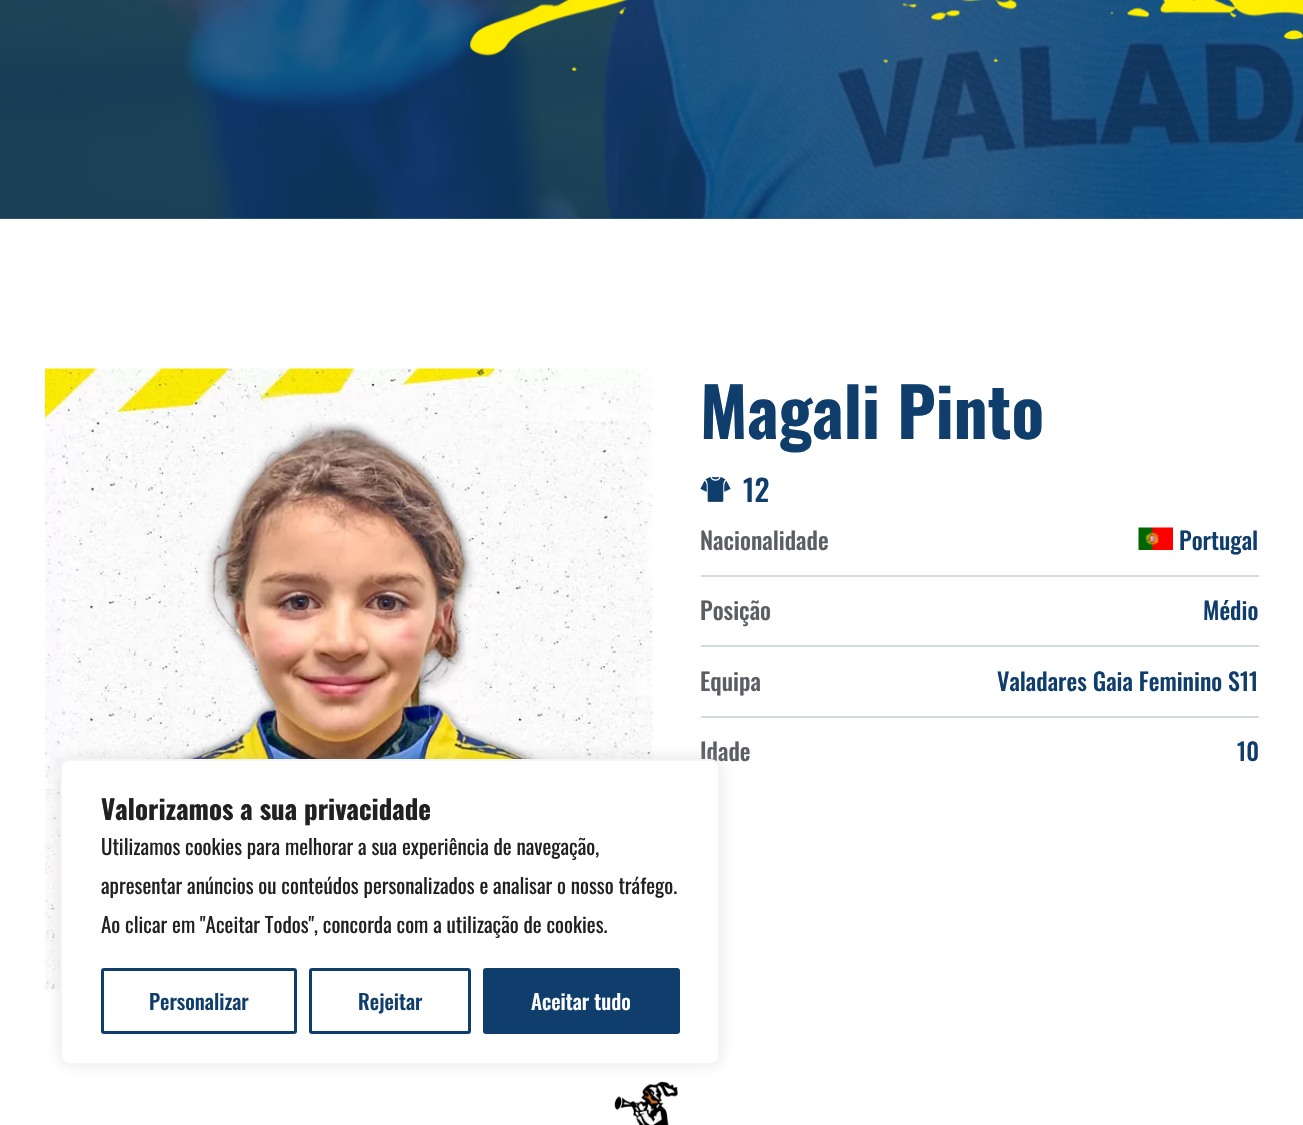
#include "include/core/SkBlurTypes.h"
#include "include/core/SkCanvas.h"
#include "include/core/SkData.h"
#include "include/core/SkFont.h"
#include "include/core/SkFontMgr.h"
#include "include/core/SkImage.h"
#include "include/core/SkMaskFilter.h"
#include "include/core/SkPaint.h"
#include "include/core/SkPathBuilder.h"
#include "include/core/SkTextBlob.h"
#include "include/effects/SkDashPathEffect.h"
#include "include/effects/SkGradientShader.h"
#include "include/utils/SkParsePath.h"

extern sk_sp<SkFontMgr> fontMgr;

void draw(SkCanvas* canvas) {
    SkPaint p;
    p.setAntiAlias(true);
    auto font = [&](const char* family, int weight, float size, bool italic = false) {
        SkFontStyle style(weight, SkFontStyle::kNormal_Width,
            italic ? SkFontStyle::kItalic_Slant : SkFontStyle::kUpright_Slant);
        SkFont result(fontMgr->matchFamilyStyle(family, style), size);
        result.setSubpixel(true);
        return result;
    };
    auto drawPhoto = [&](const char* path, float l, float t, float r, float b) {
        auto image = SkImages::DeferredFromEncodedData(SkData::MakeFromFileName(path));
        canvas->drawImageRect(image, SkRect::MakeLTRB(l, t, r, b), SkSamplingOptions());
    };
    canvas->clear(0xFFFFFFFF);
    p.setColor(0xFF3F6589);
    canvas->drawRect(SkRect::MakeLTRB(0, 218, 1303, 219), p);
    drawPhoto("media/1.png", 0, 0, 1303, 219);
    drawPhoto("media/2.png", 470, 0, 1303, 72);
    drawPhoto("media/3.png", 45, 368, 653, 990);
    auto font1 = font("Oswald", 700, 67.5f);
    p.setColor(0xFF0F3E6C);
    canvas->drawString("Magali Pinto", 700, 439, font1, p);
    drawPhoto("media/4.png", 700, 476, 731, 502);
    auto font2 = font("Oswald", 500, 30);
    canvas->drawString("12", 743, 502, font2, p);
    auto font3 = font("Oswald", 500, 24);
    p.setColor(0xFF5B5F64);
    canvas->drawString("Nacionalidade", 700, 550, font3, p);
    p.setColor(0xFFD2DAE4);
    canvas->drawRect(SkRect::MakeLTRB(701, 575, 1259, 577), p);
    drawPhoto("media/5.png", 1138, 527, 1173, 550);
    p.setColor(0xFF0F3E6C);
    canvas->drawString("Portugal", 1179, 550, font3, p);
    p.setColor(0xFF5B5F64);
    canvas->drawString("Posição", 700, 620, font3, p);
    p.setColor(0xFFD2DAE4);
    canvas->drawRect(SkRect::MakeLTRB(701, 645, 1259, 647), p);
    p.setColor(0xFF0F3E6C);
    canvas->drawString("Médio", 1203, 620, font3, p);
    p.setColor(0xFF5B5F64);
    canvas->drawString("Equipa", 700, 691, font3, p);
    p.setColor(0xFFD2DAE4);
    canvas->drawRect(SkRect::MakeLTRB(701, 716, 1259, 718), p);
    p.setColor(0xFF0F3E6C);
    canvas->drawString("Valadares Gaia Feminino S11", 997, 691, font3, p);
    p.setColor(0xFF5B5F64);
    canvas->drawString("Idade", 700, 761, font3, p);
    p.setColor(0xFF0F3E6C);
    canvas->drawString("10", 1237, 761, font3, p);
    drawPhoto("media/6.png", 614, 1081, 678, 1125);
    p.setColor(0x4DACABAB);
    p.setMaskFilter(SkMaskFilter::MakeBlur(kNormal_SkBlurStyle, 7.5f));
    canvas->drawRoundRect(SkRect::MakeLTRB(60, 758, 720, 1064), 9, 9, p);
    p.setMaskFilter(nullptr);
    p.setColor(0xFFFFFFFF);
    canvas->drawRoundRect(SkRect::MakeLTRB(61, 760, 719, 1064), 8, 8, p);
    p.setStyle(SkPaint::kStroke_Style);
    p.setStrokeWidth(2);
    p.setColor(0xFFF4F4F4);
    canvas->drawRoundRect(SkRect::MakeLTRB(61, 760, 719, 1064), 8, 8, p);
    auto font4 = font("Oswald", 700, 27);
    p.setStyle(SkPaint::kFill_Style);
    p.setColor(0xFF212121);
    canvas->drawString("Valorizamos a sua privacidade", 101, 820, font4, p);
    auto font5 = font("Oswald", 400, 21);
    {
        const struct { const char* s; float x, y; } items[] = {
            {"Utilizamos cookies para melhorar a sua experiência de navegação,", 101, 855},
            {"apresentar anúncios ou conteúdos personalizados e analisar o nosso tráfego.", 101, 894},
            {"Ao clicar em \"Aceitar Todos\", concorda com a utilização de cookies.", 101, 933},
        };
        for (auto [s, x, y] : items) {
            canvas->drawString(s, x, y, font5, p);
        }
    }
    p.setStyle(SkPaint::kStroke_Style);
    p.setStrokeWidth(3);
    p.setColor(0xFF0F3E6C);
    canvas->drawRoundRect(SkRect::MakeLTRB(102.5f, 969.5f, 295.5f, 1032.5f), 1.5f, 1.5f, p);
    auto font6 = font("Oswald", 500, 21);
    p.setStyle(SkPaint::kFill_Style);
    canvas->drawString("Personalizar", 149, 1010, font6, p);
    p.setStyle(SkPaint::kStroke_Style);
    canvas->drawRoundRect(SkRect::MakeLTRB(310.5f, 969.5f, 469.5f, 1032.5f), 1.5f, 1.5f, p);
    p.setStyle(SkPaint::kFill_Style);
    canvas->drawString("Rejeitar", 358, 1010, font6, p);
    canvas->drawRoundRect(SkRect::MakeLTRB(484.5f, 969.5f, 678.5f, 1032.5f), 1.5f, 1.5f, p);
    p.setStyle(SkPaint::kStroke_Style);
    canvas->drawRoundRect(SkRect::MakeLTRB(484.5f, 969.5f, 678.5f, 1032.5f), 1.5f, 1.5f, p);
    p.setStyle(SkPaint::kFill_Style);
    p.setColor(0xFFFFFFFF);
    canvas->drawString("Aceitar tudo", 531, 1010, font6, p);
}
